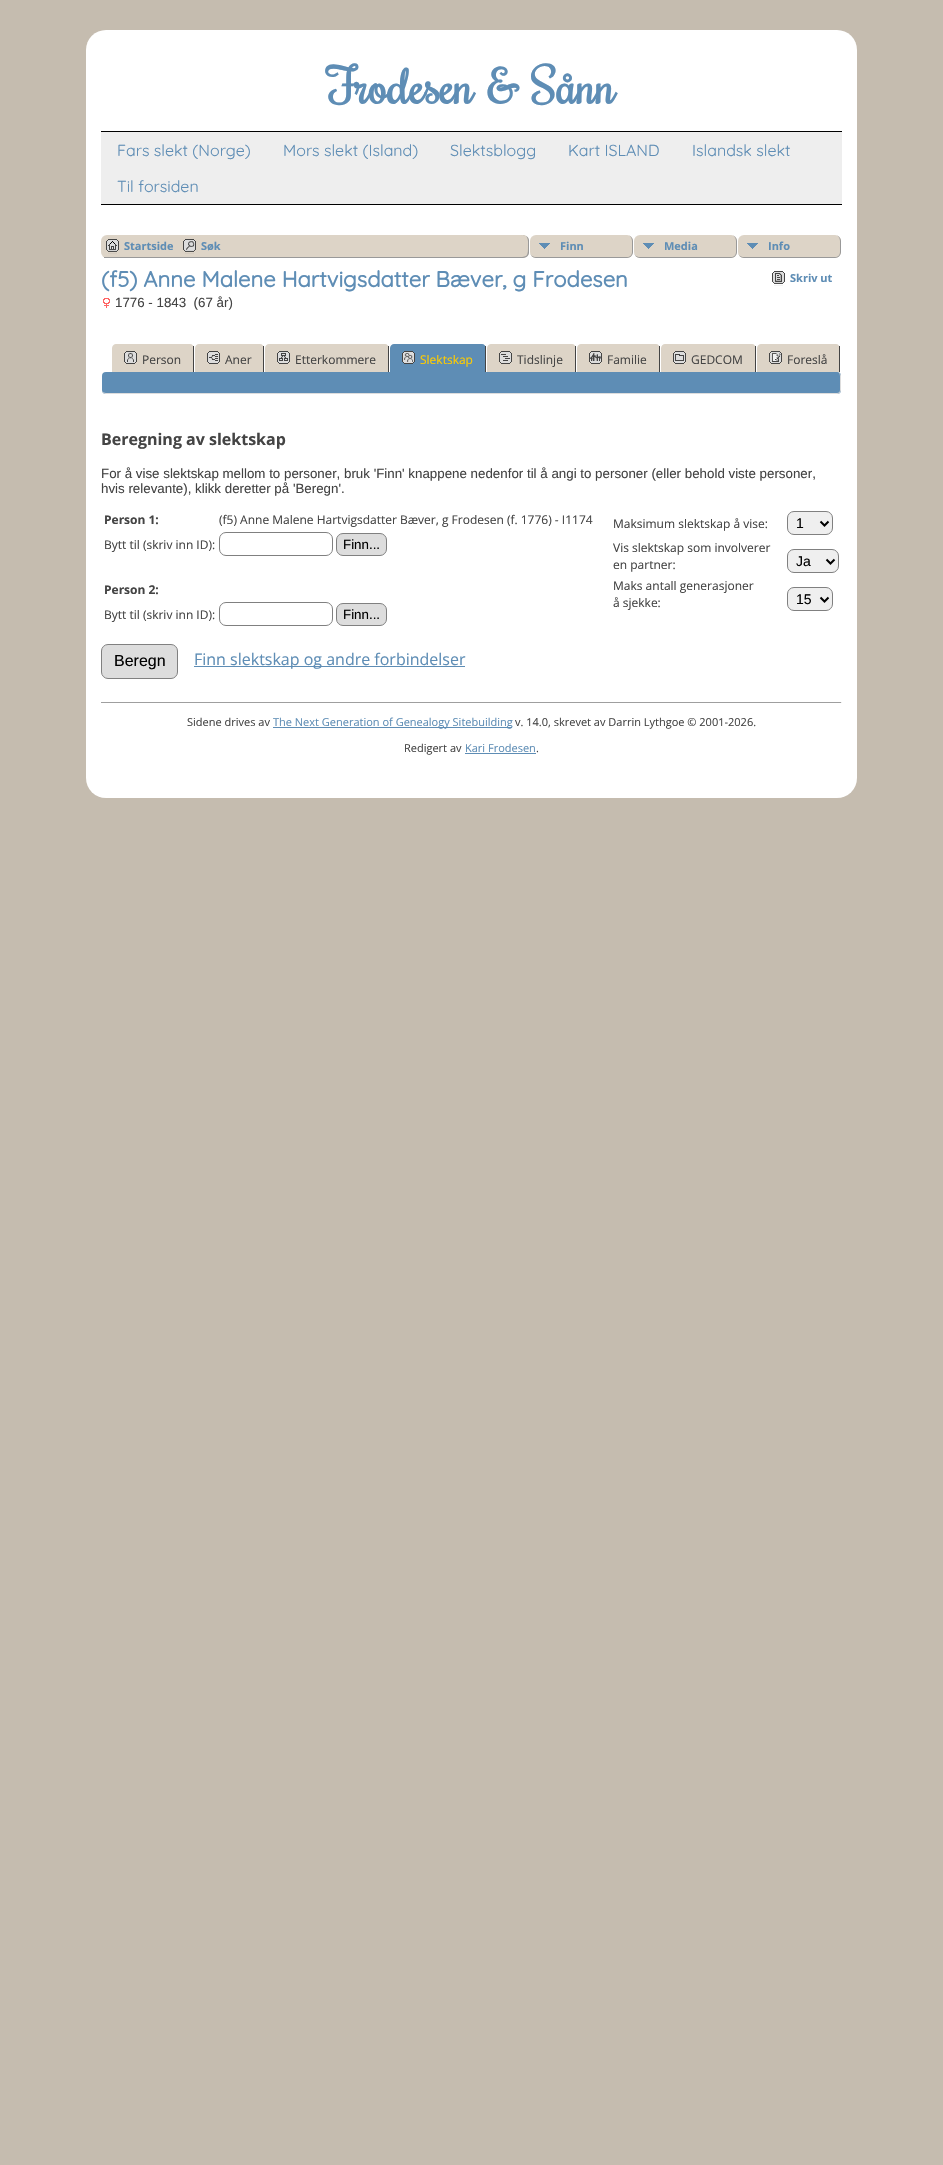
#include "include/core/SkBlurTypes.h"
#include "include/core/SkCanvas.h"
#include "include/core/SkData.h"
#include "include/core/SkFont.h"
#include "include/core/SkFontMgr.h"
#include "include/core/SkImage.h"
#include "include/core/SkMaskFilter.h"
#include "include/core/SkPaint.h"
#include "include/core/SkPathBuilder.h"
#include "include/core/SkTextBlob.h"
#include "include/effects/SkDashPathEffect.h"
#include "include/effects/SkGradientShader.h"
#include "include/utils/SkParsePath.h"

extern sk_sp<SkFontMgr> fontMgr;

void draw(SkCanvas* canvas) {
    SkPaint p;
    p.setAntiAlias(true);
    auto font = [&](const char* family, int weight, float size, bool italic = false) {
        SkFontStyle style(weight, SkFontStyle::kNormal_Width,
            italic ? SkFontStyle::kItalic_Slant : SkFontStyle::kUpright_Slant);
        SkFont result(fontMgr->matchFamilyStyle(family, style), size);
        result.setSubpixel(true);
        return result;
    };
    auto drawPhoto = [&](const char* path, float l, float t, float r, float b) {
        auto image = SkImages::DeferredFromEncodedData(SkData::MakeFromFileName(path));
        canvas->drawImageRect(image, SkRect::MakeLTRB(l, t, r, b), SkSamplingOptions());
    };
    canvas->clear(0xFFC5BCAF);
    p.setColor(0xFFFFFFFF);
    canvas->drawRoundRect(SkRect::MakeLTRB(86, 30, 857, 798), 20, 20, p);
    auto font1 = font("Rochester", 700, 48);
    p.setColor(0xFF5E8DB5);
    canvas->drawString("Frodesen & Sånn", 327, 104, font1, p);
    {
        const struct { float l, t, r, b; SkColor color; } items[] = {
            {101, 132, 842, 204, 0xFFEEEEEE},
            {101, 131, 842, 132, 0xFF000000},
            {101, 204, 842, 205, 0xFF000000},
        };
        for (auto [l, t, r, b, color] : items) {
            p.setColor(color);
            canvas->drawRect(SkRect::MakeLTRB(l, t, r, b), p);
        }
    }
    auto font2 = font("Quicksand", 300, 16);
    p.setColor(0xFF5E8DB5);
    {
        const struct { const char* s; float x, y; } items[] = {
            {"Fars slekt (Norge)", 117, 156},
            {"Mors slekt (Island)", 283, 156},
            {"Slektsblogg", 450, 156},
            {"Kart ISLAND", 568, 156},
            {"Islandsk slekt", 692, 156},
            {"Til forsiden", 117, 192},
        };
        for (auto [s, x, y] : items) {
            canvas->drawString(s, x, y, font2, p);
        }
    }
    p.setColor(0xFFDDD4C7);
    canvas->drawRoundRect(SkRect::MakeLTRB(101, 235, 842, 258), 6, 6, p);
    p.setColor(0xFF999999);
    canvas->drawRect(SkRect::MakeLTRB(104, 257, 518, 258), p);
    drawPhoto("media/1.png", 106, 239, 119, 254);
    auto font3 = font("Open Sans", 700, 11);
    p.setColor(0xFF5E8DB5);
    canvas->drawString("Startside", 124, 250, font3, p);
    drawPhoto("media/2.png", 183, 239, 196, 254);
    canvas->drawString("Søk", 201, 250, font3, p);
    p.setColor(0xFFFFFFFF);
    canvas->drawRect(SkRect::MakeLTRB(523, 235, 842, 258), p);
    p.setColor(0xFFDDD4C7);
    canvas->drawPath(SkPathBuilder().moveTo(518, 235).lineTo(523, 235).cubicTo(526.5f, 235, 529, 237.5f, 529, 241).lineTo(529, 252).cubicTo(529, 255.5f, 526.5f, 258, 523, 258).lineTo(518, 258).close().detach(), p);
    p.setColor(0xFF999999);
    canvas->drawPath(SkPathBuilder(SkPathFillType::kEvenOdd).moveTo(518, 235).cubicTo(522, 235, 528, 234.5f, 529, 240).lineTo(529, 253).cubicTo(528, 258.5f, 522, 258, 518, 258).close().moveTo(518, 235).lineTo(524, 235).cubicTo(529, 236.5f, 528, 243, 528, 246.5f).cubicTo(528, 256.5f, 527.5f, 257, 518, 257).close().detach(), p);
    p.setColor(0xFFDDD4C7);
    canvas->drawRoundRect(SkRect::MakeLTRB(530, 235, 633, 258), 6, 6, p);
    drawPhoto("media/3.png", 539, 243, 550, 249);
    p.setColor(0xFF999999);
    canvas->drawPath(SkPathBuilder(SkPathFillType::kEvenOdd).moveTo(536, 235).lineTo(627, 235).cubicTo(630, 235, 633, 238, 633, 241).lineTo(633, 252).cubicTo(633, 255, 630, 258, 627, 258).lineTo(536, 258).cubicTo(533, 258, 530, 255, 530, 252).lineTo(530, 241).cubicTo(530, 238, 533, 235, 536, 235).close().moveTo(536, 235).lineTo(627, 235).cubicTo(630, 235, 632, 238, 632, 241).lineTo(632, 252).cubicTo(632, 255, 630, 257, 627, 257).lineTo(536, 257).cubicTo(533, 257, 530, 255, 530, 252).lineTo(530, 241).cubicTo(530, 238, 533, 235, 536, 235).close().detach(), p);
    p.setColor(0xFF5E8DB5);
    canvas->drawString("Finn", 560, 250, font3, p);
    p.setColor(0xFFDDD4C7);
    canvas->drawRoundRect(SkRect::MakeLTRB(634, 235, 737, 258), 6, 6, p);
    drawPhoto("media/3.png", 643, 243, 654, 249);
    p.setColor(0xFF999999);
    canvas->drawPath(SkPathBuilder(SkPathFillType::kEvenOdd).moveTo(640, 235).lineTo(731, 235).cubicTo(734, 235, 737, 238, 737, 241).lineTo(737, 252).cubicTo(737, 255, 734, 258, 731, 258).lineTo(640, 258).cubicTo(637, 258, 634, 255, 634, 252).lineTo(634, 241).cubicTo(634, 238, 637, 235, 640, 235).close().moveTo(640, 235).lineTo(731, 235).cubicTo(734, 235, 736, 238, 736, 241).lineTo(736, 252).cubicTo(736, 255, 734, 257, 731, 257).lineTo(640, 257).cubicTo(637, 257, 634, 255, 634, 252).lineTo(634, 241).cubicTo(634, 238, 637, 235, 640, 235).close().detach(), p);
    p.setColor(0xFF5E8DB5);
    canvas->drawString("Media", 664, 250, font3, p);
    p.setColor(0xFFDDD4C7);
    canvas->drawRoundRect(SkRect::MakeLTRB(738, 235, 841, 258), 6, 6, p);
    drawPhoto("media/3.png", 747, 243, 758, 249);
    p.setColor(0xFF999999);
    canvas->drawPath(SkPathBuilder(SkPathFillType::kEvenOdd).moveTo(744, 235).lineTo(835, 235).cubicTo(838, 235, 841, 238, 841, 241).lineTo(841, 252).cubicTo(841, 255, 838, 258, 835, 258).lineTo(744, 258).cubicTo(741, 258, 738, 255, 738, 252).lineTo(738, 241).cubicTo(738, 238, 741, 235, 744, 235).close().moveTo(744, 235).lineTo(835, 235).cubicTo(838, 235, 840, 238, 840, 241).lineTo(840, 252).cubicTo(840, 255, 838, 257, 835, 257).lineTo(744, 257).cubicTo(741, 257, 738, 255, 738, 252).lineTo(738, 241).cubicTo(738, 238, 741, 235, 744, 235).close().detach(), p);
    p.setColor(0xFF5E8DB5);
    canvas->drawString("Info", 768, 250, font3, p);
    auto font4 = font("Quicksand", 700, 22);
    canvas->drawString("(f5) Anne Malene Hartvigsdatter Bæver, g Frodesen", 101, 287, font4, p);
    drawPhoto("media/4.png", 772, 271, 785, 286);
    canvas->drawString("Skriv ut", 790, 282, font3, p);
    drawPhoto("media/5.png", 103, 298, 110, 308);
    auto font5 = font("Liberation Sans", 400, 13.33f);
    p.setColor(0xFF444444);
    canvas->drawString("1776 - 1843  (67 år)", 115, 307, font5, p);
    p.setColor(0xFFDDD4C7);
    canvas->drawPath(SkPathBuilder().moveTo(116, 344).lineTo(190, 344).cubicTo(192, 344, 194, 346, 194, 348).lineTo(194, 372).lineTo(112, 372).lineTo(112, 348).cubicTo(112, 346, 114, 344, 116, 344).close().detach(), p);
    p.setColor(0xFF444444);
    canvas->drawRect(SkRect::MakeLTRB(193, 346, 194, 372), p);
    drawPhoto("media/6.png", 124, 351, 137, 364);
    auto font6 = font("Open Sans", 400, 12);
    canvas->drawString("Person", 142, 364, font6, p);
    p.setColor(0xFFDDD4C7);
    canvas->drawPath(SkPathBuilder().moveTo(199, 344).lineTo(260, 344).cubicTo(262, 344, 264, 346, 264, 348).lineTo(264, 372).lineTo(195, 372).lineTo(195, 348).cubicTo(195, 346, 197, 344, 199, 344).close().detach(), p);
    p.setColor(0xFF444444);
    canvas->drawRect(SkRect::MakeLTRB(263, 346, 264, 372), p);
    drawPhoto("media/7.png", 207, 351, 220, 364);
    canvas->drawString("Aner", 225, 364, font6, p);
    p.setColor(0xFFDDD4C7);
    canvas->drawPath(SkPathBuilder().moveTo(269, 344).lineTo(385, 344).cubicTo(387, 344, 389, 346, 389, 348).lineTo(389, 372).lineTo(265, 372).lineTo(265, 348).cubicTo(265, 346, 267, 344, 269, 344).close().detach(), p);
    p.setColor(0xFF444444);
    canvas->drawRect(SkRect::MakeLTRB(388, 346, 389, 372), p);
    drawPhoto("media/8.png", 277, 351, 290, 364);
    canvas->drawString("Etterkommere", 295, 364, font6, p);
    p.setColor(0xFF5E8DB5);
    canvas->drawPath(SkPathBuilder().moveTo(394, 344).lineTo(482, 344).cubicTo(484, 344, 486, 346, 486, 348).lineTo(486, 372).lineTo(390, 372).lineTo(390, 348).cubicTo(390, 346, 392, 344, 394, 344).close().detach(), p);
    p.setColor(0xFF444444);
    canvas->drawRect(SkRect::MakeLTRB(485, 346, 486, 372), p);
    drawPhoto("media/9.png", 402, 351, 415, 364);
    p.setColor(0xFFFFCC00);
    canvas->drawString("Slektskap", 420, 364, font6, p);
    p.setColor(0xFFDDD4C7);
    canvas->drawPath(SkPathBuilder().moveTo(491, 344).lineTo(572, 344).cubicTo(574, 344, 576, 346, 576, 348).lineTo(576, 372).lineTo(487, 372).lineTo(487, 348).cubicTo(487, 346, 489, 344, 491, 344).close().detach(), p);
    p.setColor(0xFF444444);
    canvas->drawRect(SkRect::MakeLTRB(575, 346, 576, 372), p);
    drawPhoto("media/10.png", 499, 351, 512, 364);
    canvas->drawString("Tidslinje", 517, 364, font6, p);
    p.setColor(0xFFDDD4C7);
    canvas->drawPath(SkPathBuilder().moveTo(581, 344).lineTo(656, 344).cubicTo(658, 344, 660, 346, 660, 348).lineTo(660, 372).lineTo(577, 372).lineTo(577, 348).cubicTo(577, 346, 579, 344, 581, 344).close().detach(), p);
    p.setColor(0xFF444444);
    canvas->drawRect(SkRect::MakeLTRB(659, 346, 660, 372), p);
    drawPhoto("media/11.png", 589, 351, 602, 364);
    canvas->drawString("Familie", 607, 364, font6, p);
    p.setColor(0xFFDDD4C7);
    canvas->drawPath(SkPathBuilder().moveTo(665, 344).lineTo(752, 344).cubicTo(754, 344, 756, 346, 756, 348).lineTo(756, 372).lineTo(661, 372).lineTo(661, 348).cubicTo(661, 346, 663, 344, 665, 344).close().detach(), p);
    p.setColor(0xFF444444);
    canvas->drawRect(SkRect::MakeLTRB(755, 346, 756, 372), p);
    drawPhoto("media/12.png", 673, 351, 686, 364);
    canvas->drawString("GEDCOM", 691, 364, font6, p);
    p.setColor(0xFFDDD4C7);
    canvas->drawPath(SkPathBuilder().moveTo(761, 344).lineTo(836, 344).cubicTo(838, 344, 840, 346, 840, 348).lineTo(840, 372).lineTo(757, 372).lineTo(757, 348).cubicTo(757, 346, 759, 344, 761, 344).close().detach(), p);
    p.setColor(0xFF444444);
    canvas->drawRect(SkRect::MakeLTRB(839, 346, 840, 372), p);
    drawPhoto("media/13.png", 769, 351, 782, 364);
    canvas->drawString("Foreslå", 787, 364, font6, p);
    p.setColor(0xFF5E8DB5);
    canvas->drawRoundRect(SkRect::MakeLTRB(102, 372, 841, 394), 4, 4, p);
    p.setColor(0xFFDDDDDD);
    canvas->drawPath(SkPathBuilder(SkPathFillType::kEvenOdd).moveTo(106, 372).lineTo(837, 372).cubicTo(839, 372, 841, 374, 841, 376).lineTo(841, 390).cubicTo(841, 392, 839, 394, 837, 394).lineTo(106, 394).cubicTo(104, 394, 102, 392, 102, 390).lineTo(102, 376).cubicTo(102, 374, 104, 372, 106, 372).close().moveTo(106, 372).lineTo(837, 372).cubicTo(839, 372, 840, 374, 840, 376).lineTo(840, 390).cubicTo(840, 392, 839, 393, 837, 393).lineTo(106, 393).cubicTo(104, 393, 102, 392, 102, 390).lineTo(102, 376).cubicTo(102, 374, 104, 372, 106, 372).close().detach(), p);
    auto font7 = font("Open Sans", 700, 16);
    p.setColor(0xFF444444);
    canvas->drawString("Beregning av slektskap", 101, 445, font7, p);
    canvas->drawString("For å vise slektskap mellom to personer, bruk 'Finn' knappene nedenfor til å angi to personer (eller behold viste personer,", 101, 478, font5, p);
    canvas->drawString("hvis relevante), klikk deretter på 'Beregn'.", 101, 493, font5, p);
    auto font8 = font("Open Sans", 700, 12);
    canvas->drawString("Person 1:", 104, 524, font8, p);
    canvas->drawString("(f5) Anne Malene Hartvigsdatter Bæver, g Frodesen (f. 1776) - I1174", 219, 524, font6, p);
    canvas->drawString("Bytt til (skriv inn ID):", 104, 549, font6, p);
    p.setStyle(SkPaint::kStroke_Style);
    p.setStrokeWidth(1);
    p.setColor(0xFF808080);
    canvas->drawRoundRect(SkRect::MakeLTRB(219.5f, 532.5f, 332.5f, 555.5f), 6.5f, 6.5f, p);
    p.setStyle(SkPaint::kFill_Style);
    p.setColor(0xFFDDDDDD);
    canvas->drawRoundRect(SkRect::MakeLTRB(336.5f, 533.5f, 386.5f, 555.5f), 6.5f, 6.5f, p);
    p.setStyle(SkPaint::kStroke_Style);
    p.setColor(0xFF808080);
    canvas->drawRoundRect(SkRect::MakeLTRB(336.5f, 533.5f, 386.5f, 555.5f), 6.5f, 6.5f, p);
    p.setStyle(SkPaint::kFill_Style);
    p.setColor(0xFF000000);
    canvas->drawString("Finn...", 343, 549, font5, p);
    p.setColor(0xFF444444);
    canvas->drawString("Person 2:", 104, 594, font8, p);
    canvas->drawString("Bytt til (skriv inn ID):", 104, 619, font6, p);
    p.setStyle(SkPaint::kStroke_Style);
    p.setColor(0xFF808080);
    canvas->drawRoundRect(SkRect::MakeLTRB(219.5f, 602.5f, 332.5f, 625.5f), 6.5f, 6.5f, p);
    p.setStyle(SkPaint::kFill_Style);
    p.setColor(0xFFDDDDDD);
    canvas->drawRoundRect(SkRect::MakeLTRB(336.5f, 603.5f, 386.5f, 625.5f), 6.5f, 6.5f, p);
    p.setStyle(SkPaint::kStroke_Style);
    p.setColor(0xFF808080);
    canvas->drawRoundRect(SkRect::MakeLTRB(336.5f, 603.5f, 386.5f, 625.5f), 6.5f, 6.5f, p);
    p.setStyle(SkPaint::kFill_Style);
    p.setColor(0xFF000000);
    canvas->drawString("Finn...", 343, 619, font5, p);
    p.setColor(0xFF444444);
    canvas->drawString("Maksimum slektskap å vise:", 613, 528, font6, p);
    p.setColor(0xFFEFEFEF);
    canvas->drawRoundRect(SkRect::MakeLTRB(787.5f, 511.5f, 832.5f, 534.5f), 6.5f, 6.5f, p);
    p.setStyle(SkPaint::kStroke_Style);
    p.setColor(0xFF808080);
    canvas->drawRoundRect(SkRect::MakeLTRB(787.5f, 511.5f, 832.5f, 534.5f), 6.5f, 6.5f, p);
    p.setStrokeWidth(2);
    p.setColor(0xFF000000);
    canvas->drawPath(SkPathBuilder().moveTo(820.5f, 521.5f).lineTo(824.5f, 525.5f).lineTo(828.5f, 521.5f).detach(), p);
    auto font9 = font("Liberation Sans", 400, 14);
    p.setStyle(SkPaint::kFill_Style);
    canvas->drawString("1", 796, 528, font9, p);
    p.setColor(0xFF444444);
    canvas->drawString("Vis slektskap som involverer", 613, 552, font6, p);
    canvas->drawString("en partner:", 613, 569, font6, p);
    p.setColor(0xFFEFEFEF);
    canvas->drawRoundRect(SkRect::MakeLTRB(787.5f, 549.5f, 838.5f, 572.5f), 6.5f, 6.5f, p);
    p.setStyle(SkPaint::kStroke_Style);
    p.setStrokeWidth(1);
    p.setColor(0xFF808080);
    canvas->drawRoundRect(SkRect::MakeLTRB(787.5f, 549.5f, 838.5f, 572.5f), 6.5f, 6.5f, p);
    p.setStrokeWidth(2);
    p.setColor(0xFF000000);
    canvas->drawPath(SkPathBuilder().moveTo(826.5f, 559.5f).lineTo(830.5f, 563.5f).lineTo(834.5f, 559.5f).detach(), p);
    p.setStyle(SkPaint::kFill_Style);
    canvas->drawString("Ja", 796, 566, font9, p);
    p.setColor(0xFF444444);
    canvas->drawString("Maks antall generasjoner", 613, 590, font6, p);
    canvas->drawString("å sjekke:", 613, 607, font6, p);
    p.setColor(0xFFEFEFEF);
    canvas->drawRoundRect(SkRect::MakeLTRB(787.5f, 587.5f, 832.5f, 610.5f), 6.5f, 6.5f, p);
    p.setStyle(SkPaint::kStroke_Style);
    p.setStrokeWidth(1);
    p.setColor(0xFF808080);
    canvas->drawRoundRect(SkRect::MakeLTRB(787.5f, 587.5f, 832.5f, 610.5f), 6.5f, 6.5f, p);
    p.setStrokeWidth(2);
    p.setColor(0xFF000000);
    canvas->drawPath(SkPathBuilder().moveTo(820.5f, 597.5f).lineTo(824.5f, 601.5f).lineTo(828.5f, 597.5f).detach(), p);
    p.setStyle(SkPaint::kFill_Style);
    canvas->drawString("15", 796, 604, font9, p);
    p.setColor(0xFFDDDDDD);
    canvas->drawRoundRect(SkRect::MakeLTRB(101.5f, 644.5f, 177.5f, 678.5f), 6.5f, 6.5f, p);
    p.setStyle(SkPaint::kStroke_Style);
    p.setStrokeWidth(1);
    p.setColor(0xFF808080);
    canvas->drawRoundRect(SkRect::MakeLTRB(101.5f, 644.5f, 177.5f, 678.5f), 6.5f, 6.5f, p);
    auto font10 = font("Liberation Sans", 400, 16);
    p.setStyle(SkPaint::kFill_Style);
    p.setColor(0xFF000000);
    canvas->drawString("Beregn", 114, 666, font10, p);
    p.setColor(0xFF5E8DB5);
    canvas->drawRect(SkRect::MakeLTRB(194, 666, 465, 667), p);
    auto font11 = font("Open Sans", 400, 16);
    canvas->drawString("Finn slektskap og andre forbindelser", 194, 665, font11, p);
    p.setColor(0xFF9F9F9F);
    canvas->drawRect(SkRect::MakeLTRB(101, 702, 842, 703), p);
    p.setColor(0xFFEEEEEE);
    canvas->drawRect(SkRect::MakeLTRB(841, 702, 842, 703), p);
    auto font12 = font("Open Sans", 400, 11);
    p.setColor(0xFF444444);
    canvas->drawString("Sidene drives av", 187, 726, font12, p);
    p.setColor(0xFF5E8DB5);
    canvas->drawRect(SkRect::MakeLTRB(273, 727, 512, 728), p);
    canvas->drawString("The Next Generation of Genealogy Sitebuilding", 273, 726, font12, p);
    p.setColor(0xFF444444);
    canvas->drawString("v. 14.0, skrevet av Darrin Lythgoe © 2001-2026.", 515, 726, font12, p);
    canvas->drawString("Redigert av", 404, 752, font12, p);
    p.setColor(0xFF5E8DB5);
    canvas->drawString("Kari Frodesen", 465, 752, font12, p);
    canvas->drawRect(SkRect::MakeLTRB(465, 753, 536, 754), p);
    p.setColor(0xFF444444);
    canvas->drawString(".", 536, 752, font12, p);
}
